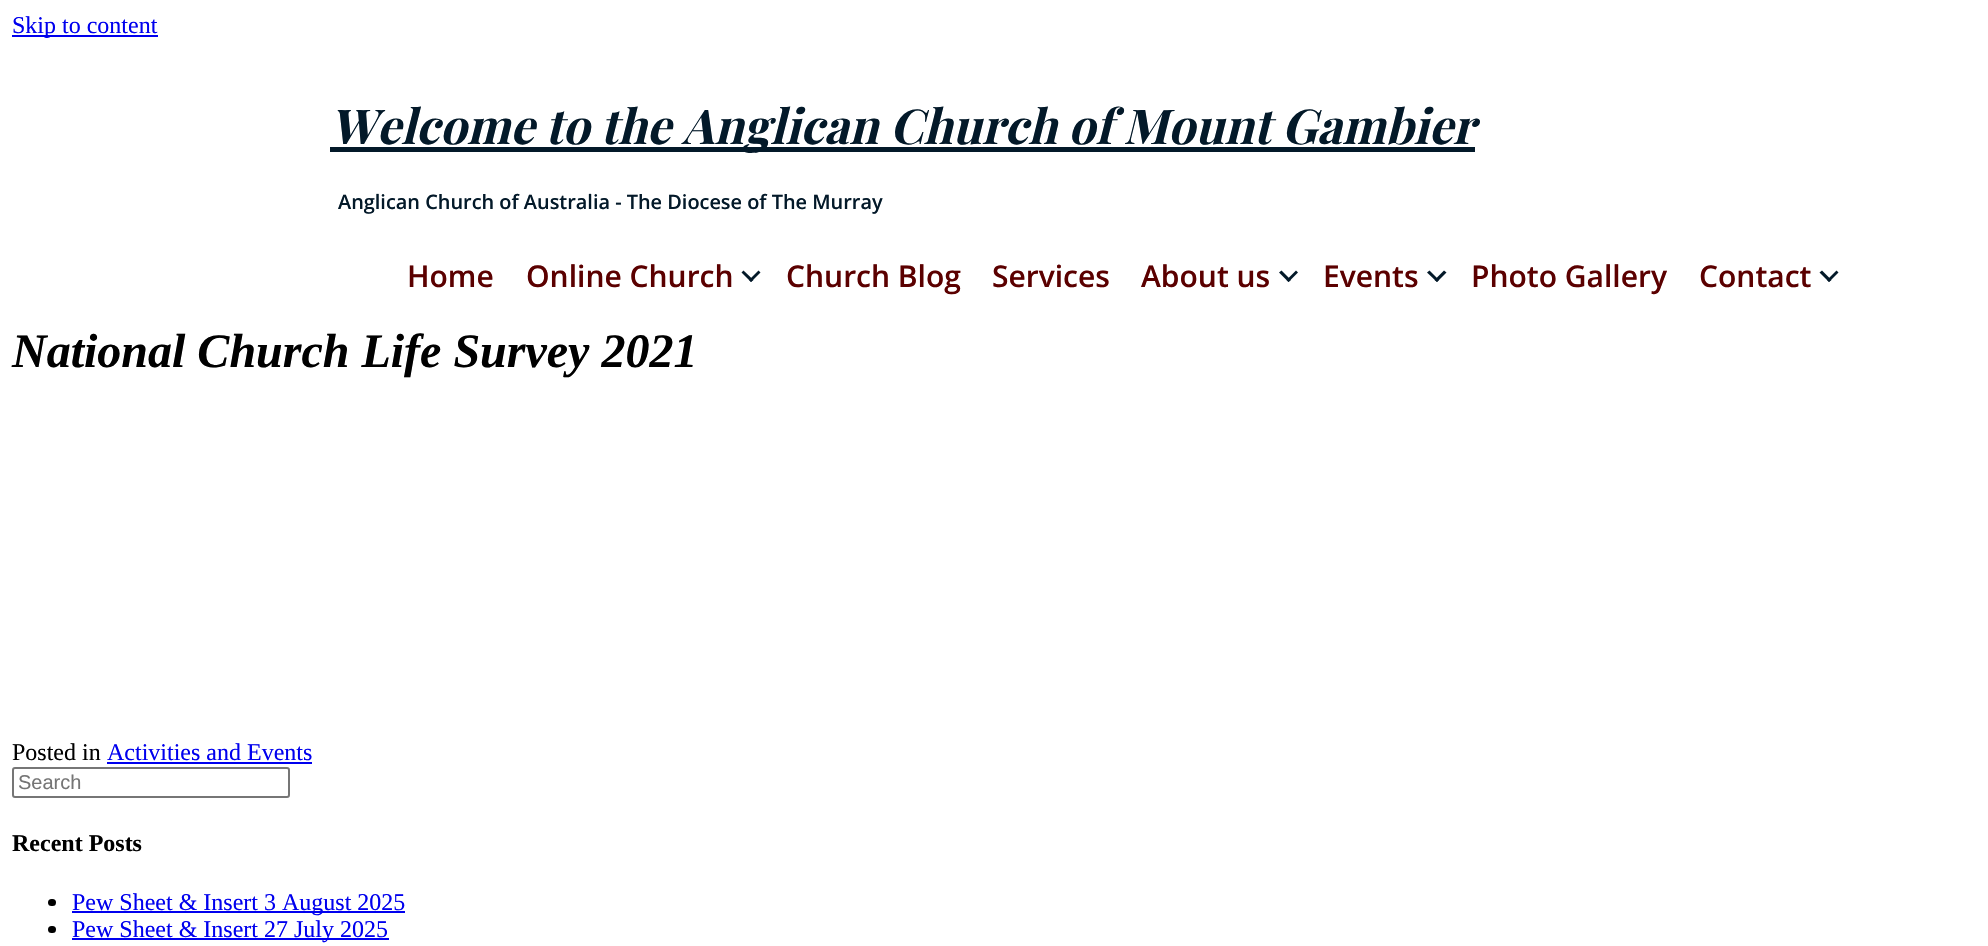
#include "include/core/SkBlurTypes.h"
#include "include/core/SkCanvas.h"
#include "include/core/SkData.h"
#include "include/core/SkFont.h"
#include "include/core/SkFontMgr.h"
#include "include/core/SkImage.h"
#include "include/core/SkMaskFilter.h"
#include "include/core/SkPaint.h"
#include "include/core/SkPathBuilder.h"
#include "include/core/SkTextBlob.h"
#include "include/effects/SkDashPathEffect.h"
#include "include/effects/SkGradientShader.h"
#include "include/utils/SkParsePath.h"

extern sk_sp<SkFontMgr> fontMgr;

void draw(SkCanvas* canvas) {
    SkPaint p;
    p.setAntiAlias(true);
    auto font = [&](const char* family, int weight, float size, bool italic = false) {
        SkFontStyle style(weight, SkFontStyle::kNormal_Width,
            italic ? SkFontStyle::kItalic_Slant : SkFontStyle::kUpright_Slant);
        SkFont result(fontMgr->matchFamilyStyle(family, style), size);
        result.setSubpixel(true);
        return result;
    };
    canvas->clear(0xFFFFFFFF);
    p.setColor(0xFF0000EE);
    canvas->drawRect(SkRect::MakeLTRB(12, 35, 158, 37), p);
    auto font1 = font("Liberation Serif", 400, 24);
    canvas->drawString("Skip to content", 12, 33, font1, p);
    p.setColor(0xFF031929);
    canvas->drawRect(SkRect::MakeLTRB(330, 147, 1475, 152), p);
    auto font2 = font("Playfair Display", 700, 48, true);
    canvas->drawString("Welcome to the Anglican Church of Mount Gambier", 330, 144, font2, p);
    auto font3 = font("Open Sans", 600, 19.9f);
    canvas->drawString("Anglican Church of Australia - The Diocese of The Murray", 338, 209, font3, p);
    auto font4 = font("Open Sans", 600, 30);
    p.setColor(0xFF5B0000);
    canvas->drawString("Home", 407, 287, font4, p);
    canvas->drawString("Online Church", 526, 287, font4, p);
    p.setColor(0xFF031929);
    canvas->drawPath(SkPathBuilder().moveTo(758.5f, 270.5f).lineTo(760.5f, 272.5f).lineTo(751, 282).lineTo(749, 280).close().detach(), p);
    canvas->drawPath(SkPathBuilder().moveTo(743.5f, 270.5f).lineTo(753.5f, 280).lineTo(751, 282).lineTo(741.5f, 272.5f).close().detach(), p);
    p.setColor(0xFF5B0000);
    {
        const struct { const char* s; float x, y; } items[] = {
            {"Church Blog", 786, 287},
            {"Services", 992, 287},
            {"About us", 1141, 287},
        };
        for (auto [s, x, y] : items) {
            canvas->drawString(s, x, y, font4, p);
        }
    }
    p.setColor(0xFF031929);
    canvas->drawPath(SkPathBuilder().moveTo(1296, 270.5f).lineTo(1298, 272.5f).lineTo(1288.5f, 282).lineTo(1286.5f, 280).close().detach(), p);
    canvas->drawPath(SkPathBuilder().moveTo(1281.5f, 270.5f).lineTo(1291, 280).lineTo(1288.5f, 282).lineTo(1279, 272.5f).close().detach(), p);
    p.setColor(0xFF5B0000);
    canvas->drawString("Events", 1323, 287, font4, p);
    p.setColor(0xFF031929);
    canvas->drawPath(SkPathBuilder().moveTo(1444, 270.5f).lineTo(1446.5f, 272.5f).lineTo(1437, 282).lineTo(1434.5f, 280).close().detach(), p);
    canvas->drawPath(SkPathBuilder().moveTo(1429.5f, 270.5f).lineTo(1439, 280).lineTo(1437, 282).lineTo(1427, 272.5f).close().detach(), p);
    p.setColor(0xFF5B0000);
    canvas->drawString("Photo Gallery", 1471, 287, font4, p);
    canvas->drawString("Contact", 1699, 287, font4, p);
    p.setColor(0xFF031929);
    canvas->drawPath(SkPathBuilder().moveTo(1836.5f, 270.5f).lineTo(1838.5f, 272.5f).lineTo(1829, 282).lineTo(1827, 280).close().detach(), p);
    canvas->drawPath(SkPathBuilder().moveTo(1822, 270.5f).lineTo(1831.5f, 280).lineTo(1829, 282).lineTo(1819.5f, 272.5f).close().detach(), p);
    auto font5 = font("Liberation Serif", 700, 48, true);
    p.setColor(0xFF000000);
    canvas->drawString("National Church Life Survey 2021", 12, 367, font5, p);
    canvas->drawString("Posted in", 12, 760, font1, p);
    p.setColor(0xFF0000EE);
    canvas->drawString("Activities and Events", 107, 760, font1, p);
    canvas->drawRect(SkRect::MakeLTRB(107, 762, 312, 764), p);
    p.setStyle(SkPaint::kStroke_Style);
    p.setStrokeWidth(2);
    p.setColor(0xFF767676);
    canvas->drawRoundRect(SkRect::MakeLTRB(13, 768, 289, 797), 2, 2, p);
    auto font6 = font("Liberation Sans", 400, 20);
    p.setStyle(SkPaint::kFill_Style);
    p.setColor(0xFF757575);
    canvas->drawString("Search", 18, 789, font6, p);
    auto font7 = font("Liberation Serif", 700, 24);
    p.setColor(0xFF000000);
    canvas->drawString("Recent Posts", 12, 851, font7, p);
    canvas->drawRoundRect(SkRect::MakeLTRB(48, 899, 56, 906), 3.5f, 3.5f, p);
    p.setColor(0xFF0000EE);
    canvas->drawRect(SkRect::MakeLTRB(72, 911, 405, 913), p);
    canvas->drawString("Pew Sheet & Insert 3 August 2025", 72, 910, font1, p);
    p.setColor(0xFF000000);
    canvas->drawRoundRect(SkRect::MakeLTRB(48, 926, 56, 933), 3.5f, 3.5f, p);
    p.setColor(0xFF0000EE);
    canvas->drawRect(SkRect::MakeLTRB(72, 938, 389, 940), p);
    canvas->drawString("Pew Sheet & Insert 27 July 2025", 72, 937, font1, p);
}
